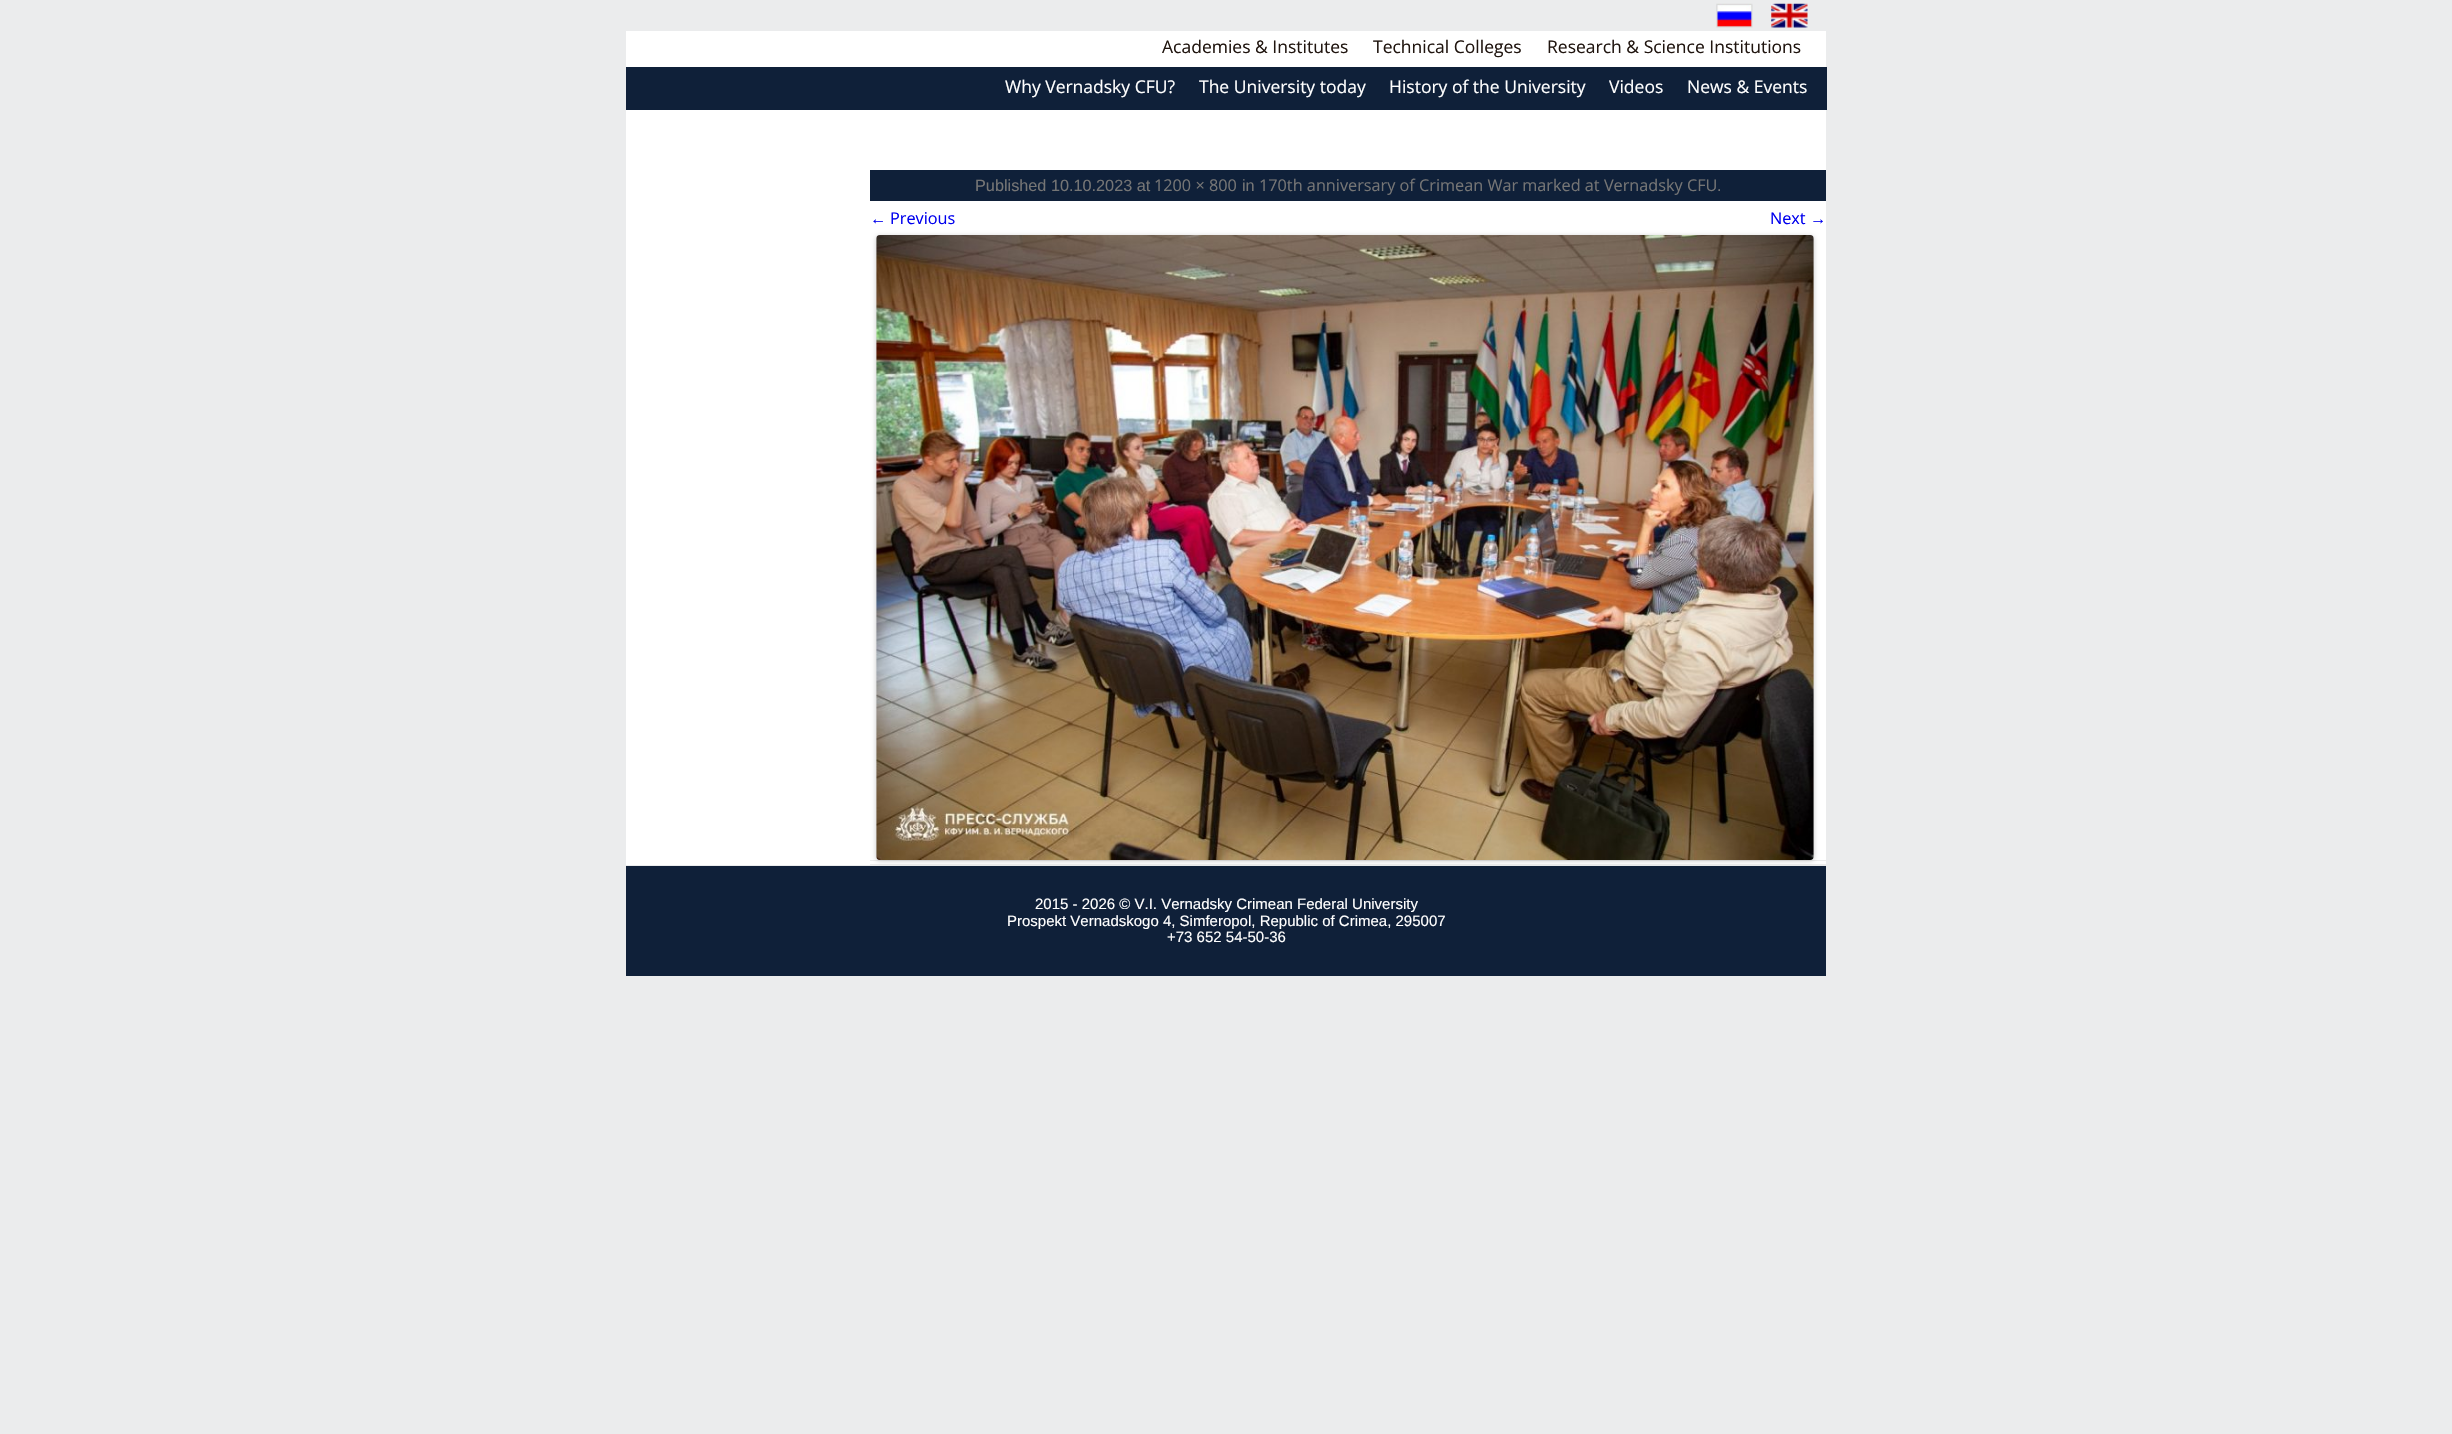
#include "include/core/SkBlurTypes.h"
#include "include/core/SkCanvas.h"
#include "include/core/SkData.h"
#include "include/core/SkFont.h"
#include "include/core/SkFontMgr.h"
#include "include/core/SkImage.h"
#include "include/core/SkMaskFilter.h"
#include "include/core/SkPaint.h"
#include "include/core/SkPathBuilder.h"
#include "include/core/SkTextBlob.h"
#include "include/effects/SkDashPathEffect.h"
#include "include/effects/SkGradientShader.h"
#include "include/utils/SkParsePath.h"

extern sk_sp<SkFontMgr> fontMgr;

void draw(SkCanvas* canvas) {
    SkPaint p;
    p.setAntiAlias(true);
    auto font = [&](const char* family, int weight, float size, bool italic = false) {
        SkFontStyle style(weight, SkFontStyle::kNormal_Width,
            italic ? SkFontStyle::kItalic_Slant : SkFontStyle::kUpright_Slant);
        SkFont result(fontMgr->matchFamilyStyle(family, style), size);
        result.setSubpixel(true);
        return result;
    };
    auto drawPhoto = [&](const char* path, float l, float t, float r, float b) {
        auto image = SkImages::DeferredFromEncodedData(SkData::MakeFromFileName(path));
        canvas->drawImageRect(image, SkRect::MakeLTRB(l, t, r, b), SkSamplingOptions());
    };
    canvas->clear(0xFFEBECED);
    p.setColor(0xFFFFFFFF);
    canvas->drawRect(SkRect::MakeLTRB(626, 31, 1826, 865), p);
    p.setColor(0xFF0F2039);
    canvas->drawRect(SkRect::MakeLTRB(626, 67, 1827, 110), p);
    drawPhoto("media/1.png", 1716, 3, 1753, 28);
    drawPhoto("media/2.png", 1771, 3, 1808, 28);
    auto font1 = font("Open Sans", 400, 17.5f);
    p.setColor(0xFF20150F);
    {
        const struct { const char* s; float x, y; } items[] = {
            {"Academies & Institutes", 1162, 53},
            {"Technical Colleges", 1373, 53},
            {"Research & Science Institutions", 1547, 53},
        };
        for (auto [s, x, y] : items) {
            canvas->drawString(s, x, y, font1, p);
        }
    }
    p.setColor(0xFFFFFFFF);
    {
        const struct { const char* s; float x, y; } items[] = {
            {"Why Vernadsky CFU?", 1005, 93},
            {"The University today", 1199, 93},
            {"History of the University", 1389, 93},
            {"Videos", 1609, 93},
            {"News & Events", 1687, 93},
        };
        for (auto [s, x, y] : items) {
            canvas->drawString(s, x, y, font1, p);
        }
    }
    {
        const struct { float l, t, r, b; SkColor color; } items[] = {
            {870, 860, 1826, 861, 0xFFEDEDED},
            {870, 864, 1826, 865, 0xFFEDEDED},
            {870, 170, 1826, 201, 0xFF0F2039},
        };
        for (auto [l, t, r, b, color] : items) {
            p.setColor(color);
            canvas->drawRect(SkRect::MakeLTRB(l, t, r, b), p);
        }
    }
    auto font2 = font("Liberation Sans", 400, 16.25f);
    p.setColor(0xFF757575);
    canvas->drawString("Published 10.10.2023 at", 975, 191, font2, p);
    auto font3 = font("Open Sans", 400, 16.25f);
    canvas->drawString("1200 × 800", 1154, 191, font3, p);
    canvas->drawString("in", 1242, 191, font2, p);
    canvas->drawString("170th anniversary of Crimean War marked at Vernadsky CFU", 1259, 191, font3, p);
    canvas->drawString(".", 1717, 191, font2, p);
    p.setColor(0xFF0000EE);
    canvas->drawString("←", 870, 224, font2, p);
    canvas->drawString("Previous", 890, 224, font3, p);
    canvas->drawString("Next", 1770, 224, font3, p);
    canvas->drawString("→", 1810, 224, font2, p);
    p.setColor(0xFF0F2039);
    canvas->drawRect(SkRect::MakeLTRB(626, 866, 1826, 976), p);
    p.setColor(0x33000000);
    p.setMaskFilter(SkMaskFilter::MakeBlur(kNormal_SkBlurStyle, 2.5f));
    canvas->drawRoundRect(SkRect::MakeLTRB(876, 236, 1814, 861), 4, 4, p);
    p.setMaskFilter(nullptr);
    drawPhoto("media/3.png", 876, 235, 1814, 860);
    auto font4 = font("Liberation Sans", 400, 15);
    p.setColor(0xFFFFFFFF);
    {
        const struct { const char* s; float x, y; } items[] = {
            {"2015 - 2026 © V.I. Vernadsky Crimean Federal University", 1035, 909},
            {"Prospekt Vernadskogo 4, Simferopol, Republic of Crimea, 295007", 1007, 926},
            {"+73 652 54-50-36", 1167, 942},
        };
        for (auto [s, x, y] : items) {
            canvas->drawString(s, x, y, font4, p);
        }
    }
}
